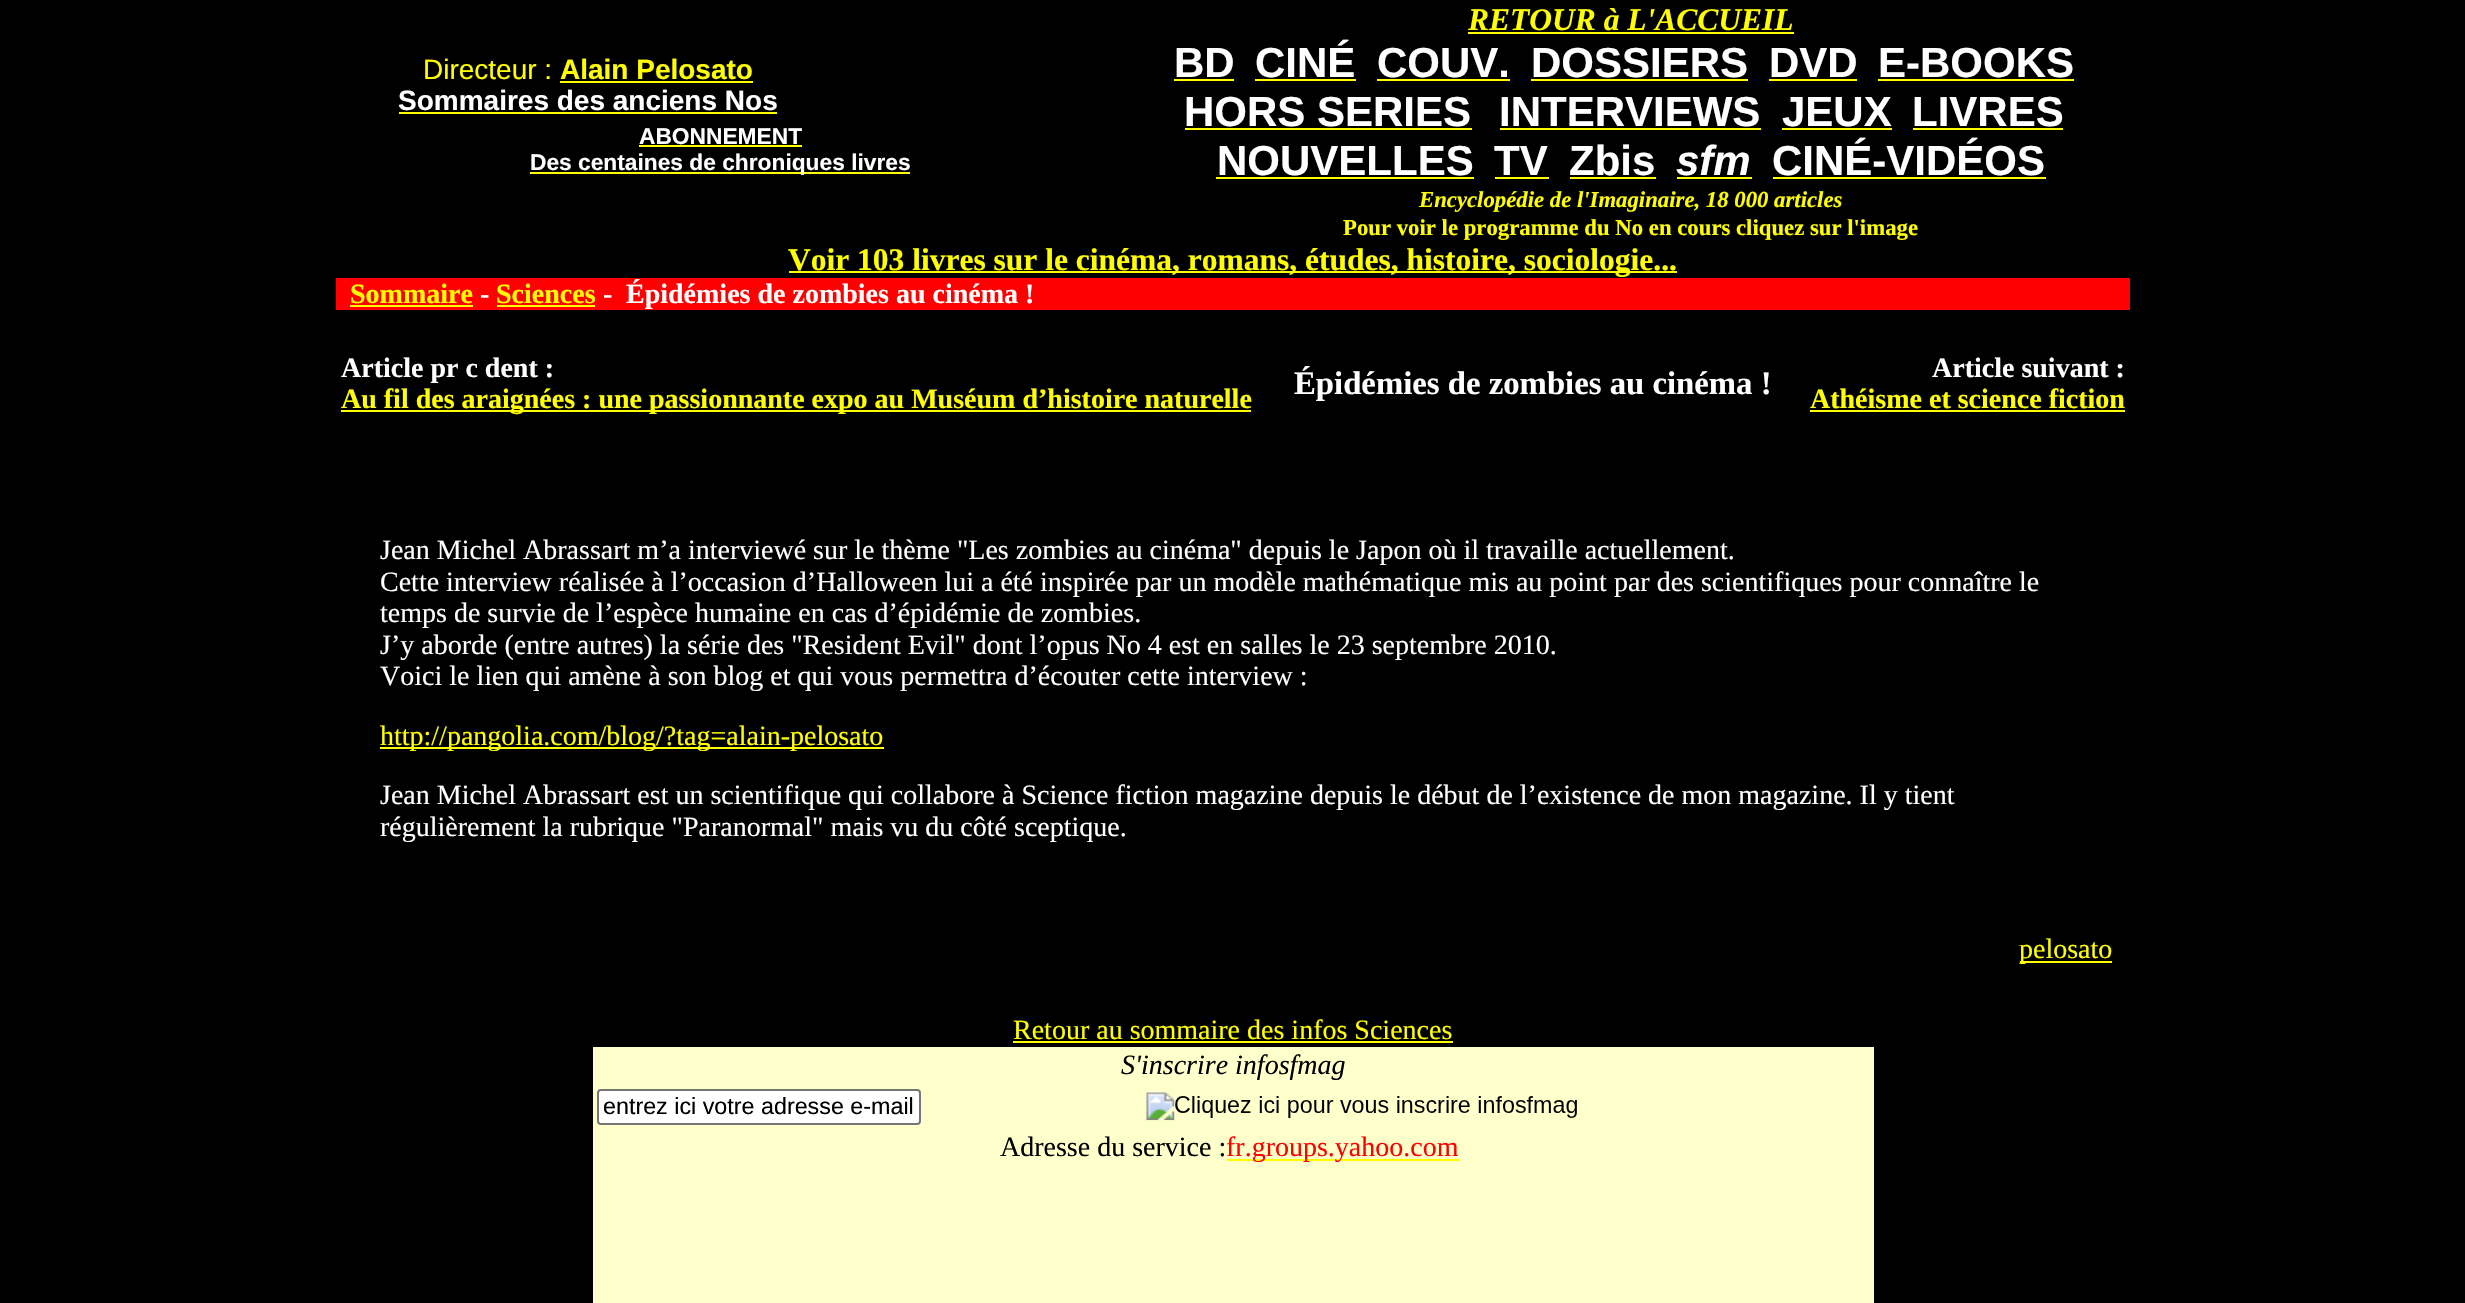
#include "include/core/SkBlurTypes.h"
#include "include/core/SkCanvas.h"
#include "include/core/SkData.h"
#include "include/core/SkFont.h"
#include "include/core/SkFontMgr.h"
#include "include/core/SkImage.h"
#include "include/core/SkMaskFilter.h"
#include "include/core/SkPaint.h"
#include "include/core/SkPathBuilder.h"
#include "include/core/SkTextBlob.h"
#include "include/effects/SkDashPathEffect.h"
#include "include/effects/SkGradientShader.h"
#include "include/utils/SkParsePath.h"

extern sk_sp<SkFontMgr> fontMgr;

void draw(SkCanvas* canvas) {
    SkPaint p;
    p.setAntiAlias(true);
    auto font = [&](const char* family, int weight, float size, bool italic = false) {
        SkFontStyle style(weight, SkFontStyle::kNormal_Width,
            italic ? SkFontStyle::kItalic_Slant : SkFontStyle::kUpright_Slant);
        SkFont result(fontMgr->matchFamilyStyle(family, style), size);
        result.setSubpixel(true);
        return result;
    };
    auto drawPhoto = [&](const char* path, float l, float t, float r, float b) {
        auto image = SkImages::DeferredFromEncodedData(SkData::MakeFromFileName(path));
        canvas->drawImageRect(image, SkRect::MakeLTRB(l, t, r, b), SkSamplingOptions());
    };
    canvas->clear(0xFF000000);
    auto font1 = font("Liberation Sans", 400, 28);
    p.setColor(0xFFFFFF00);
    canvas->drawString("Directeur :", 423, 79, font1, p);
    auto font2 = font("Liberation Sans", 700, 28);
    canvas->drawString("Alain Pelosato", 560, 79, font2, p);
    canvas->drawRect(SkRect::MakeLTRB(560, 81, 753, 83), p);
    p.setColor(0xFFFFFFFF);
    canvas->drawString("Sommaires des anciens Nos", 398, 110, font2, p);
    p.setColor(0xFFFFFF00);
    canvas->drawRect(SkRect::MakeLTRB(399, 112, 777, 114), p);
    auto font3 = font("Liberation Sans", 700, 22.75f);
    p.setColor(0xFFFFFFFF);
    canvas->drawString("ABONNEMENT", 639, 144, font3, p);
    p.setColor(0xFFFFFF00);
    canvas->drawRect(SkRect::MakeLTRB(639, 145, 802, 147), p);
    canvas->drawRect(SkRect::MakeLTRB(530, 172, 910, 174), p);
    p.setColor(0xFFFFFFFF);
    canvas->drawString("Des centaines de chroniques livres", 530, 170, font3, p);
    auto font4 = font("Liberation Serif", 700, 31.5f, true);
    p.setColor(0xFFFFFF00);
    canvas->drawString("RETOUR à L'ACCUEIL", 1468, 30, font4, p);
    canvas->drawRect(SkRect::MakeLTRB(1468, 32, 1794, 34), p);
    auto font5 = font("Liberation Sans", 700, 42);
    p.setColor(0xFFFFFFFF);
    canvas->drawString("BD", 1174, 77, font5, p);
    p.setColor(0xFFFFFF00);
    canvas->drawRect(SkRect::MakeLTRB(1174, 79, 1234, 81), p);
    p.setColor(0xFFFFFFFF);
    canvas->drawString("CINÉ", 1255, 77, font5, p);
    p.setColor(0xFFFFFF00);
    canvas->drawRect(SkRect::MakeLTRB(1255, 79, 1356, 81), p);
    p.setColor(0xFFFFFFFF);
    canvas->drawString("COUV.", 1377, 77, font5, p);
    p.setColor(0xFFFFFF00);
    canvas->drawRect(SkRect::MakeLTRB(1377, 79, 1510, 81), p);
    p.setColor(0xFFFFFFFF);
    canvas->drawString("DOSSIERS", 1531, 77, font5, p);
    p.setColor(0xFFFFFF00);
    canvas->drawRect(SkRect::MakeLTRB(1531, 79, 1748, 81), p);
    p.setColor(0xFFFFFFFF);
    canvas->drawString("DVD", 1769, 77, font5, p);
    p.setColor(0xFFFFFF00);
    canvas->drawRect(SkRect::MakeLTRB(1769, 79, 1857, 81), p);
    p.setColor(0xFFFFFFFF);
    canvas->drawString("E-BOOKS", 1878, 77, font5, p);
    p.setColor(0xFFFFFF00);
    canvas->drawRect(SkRect::MakeLTRB(1878, 79, 2074, 81), p);
    p.setColor(0xFFFFFFFF);
    canvas->drawString("HORS SERIES", 1184, 126, font5, p);
    p.setColor(0xFFFFFF00);
    canvas->drawRect(SkRect::MakeLTRB(1185, 128, 1472, 130), p);
    p.setColor(0xFFFFFFFF);
    canvas->drawString("INTERVIEWS", 1499, 126, font5, p);
    p.setColor(0xFFFFFF00);
    canvas->drawRect(SkRect::MakeLTRB(1500, 128, 1761, 130), p);
    p.setColor(0xFFFFFFFF);
    canvas->drawString("JEUX", 1782, 126, font5, p);
    p.setColor(0xFFFFFF00);
    canvas->drawRect(SkRect::MakeLTRB(1782, 128, 1892, 130), p);
    p.setColor(0xFFFFFFFF);
    canvas->drawString("LIVRES", 1912, 126, font5, p);
    p.setColor(0xFFFFFF00);
    canvas->drawRect(SkRect::MakeLTRB(1913, 128, 2063, 130), p);
    p.setColor(0xFFFFFFFF);
    canvas->drawString("NOUVELLES", 1217, 175, font5, p);
    p.setColor(0xFFFFFF00);
    canvas->drawRect(SkRect::MakeLTRB(1216, 177, 1474, 179), p);
    p.setColor(0xFFFFFFFF);
    canvas->drawString("TV", 1494, 175, font5, p);
    p.setColor(0xFFFFFF00);
    canvas->drawRect(SkRect::MakeLTRB(1495, 177, 1549, 179), p);
    p.setColor(0xFFFFFFFF);
    canvas->drawString("Zbis", 1569, 175, font5, p);
    p.setColor(0xFFFFFF00);
    canvas->drawRect(SkRect::MakeLTRB(1570, 177, 1656, 179), p);
    auto font6 = font("Liberation Sans", 700, 42, true);
    p.setColor(0xFFFFFFFF);
    canvas->drawString("sfm", 1676, 175, font6, p);
    p.setColor(0xFFFFFF00);
    canvas->drawRect(SkRect::MakeLTRB(1677, 177, 1752, 179), p);
    p.setColor(0xFFFFFFFF);
    canvas->drawString("CINÉ-VIDÉOS", 1772, 175, font5, p);
    p.setColor(0xFFFFFF00);
    canvas->drawRect(SkRect::MakeLTRB(1773, 177, 2046, 179), p);
    auto font7 = font("Liberation Serif", 700, 22.75f, true);
    canvas->drawString("Encyclopédie de l'Imaginaire, 18 000 articles", 1419, 207, font7, p);
    auto font8 = font("Liberation Serif", 700, 22.75f);
    canvas->drawString("Pour voir le programme du No en cours cliquez sur l'image", 1343, 235, font8, p);
    canvas->drawRect(SkRect::MakeLTRB(789, 271, 1677, 273), p);
    auto font9 = font("Liberation Serif", 700, 31.5f);
    canvas->drawString("Voir 103 livres sur le cinéma, romans, études, histoire, sociologie...", 788, 270, font9, p);
    p.setColor(0xFFFF0000);
    canvas->drawRect(SkRect::MakeLTRB(336, 278, 2130, 310), p);
    auto font10 = font("Liberation Serif", 700, 28);
    p.setColor(0xFFFFFF00);
    canvas->drawString("Sommaire", 350, 303, font10, p);
    canvas->drawRect(SkRect::MakeLTRB(350, 305, 473, 307), p);
    p.setColor(0xFFFFFFFF);
    canvas->drawString("-", 480, 303, font10, p);
    p.setColor(0xFFFFFF00);
    canvas->drawString("Sciences", 496, 303, font10, p);
    canvas->drawRect(SkRect::MakeLTRB(497, 305, 595, 307), p);
    p.setColor(0xFFFFFFFF);
    {
        const struct { const char* s; float x, y; } items[] = {
            {"-", 603, 303},
            {"Épidémies de zombies au cinéma !", 626, 303},
            {"Article pr c dent :", 341, 377},
        };
        for (auto [s, x, y] : items) {
            canvas->drawString(s, x, y, font10, p);
        }
    }
    p.setColor(0xFFFFFF00);
    canvas->drawRect(SkRect::MakeLTRB(341, 410, 1251, 412), p);
    canvas->drawString("Au fil des araignées : une passionnante expo au Muséum d’histoire naturelle", 341, 408, font10, p);
    auto font11 = font("Liberation Serif", 700, 32.75f);
    p.setColor(0xFFFFFFFF);
    canvas->drawString("Épidémies de zombies au cinéma !", 1294, 394, font11, p);
    canvas->drawString("Article suivant :", 1932, 377, font10, p);
    p.setColor(0xFFFFFF00);
    canvas->drawString("Athéisme et science fiction", 1810, 408, font10, p);
    canvas->drawRect(SkRect::MakeLTRB(1810, 410, 2125, 412), p);
    auto font12 = font("Liberation Serif", 400, 28);
    p.setColor(0xFFFFFFFF);
    {
        const struct { const char* s; float x, y; } items[] = {
            {"Jean Michel Abrassart m’a interviewé sur le thème \"Les zombies au cinéma\" depuis le Japon où il travaille actuellement.", 380, 559},
            {"Cette interview réalisée à l’occasion d’Halloween lui a été inspirée par un modèle mathématique mis au point par des scientifiques pour connaître le", 380, 591},
            {"temps de survie de l’espèce humaine en cas d’épidémie de zombies.", 380, 622},
            {"J’y aborde (entre autres) la série des \"Resident Evil\" dont l’opus No 4 est en salles le 23 septembre 2010.", 380, 654},
            {"Voici le lien qui amène à son blog et qui vous permettra d’écouter cette interview :", 380, 685},
        };
        for (auto [s, x, y] : items) {
            canvas->drawString(s, x, y, font12, p);
        }
    }
    p.setColor(0xFFFFFF00);
    canvas->drawRect(SkRect::MakeLTRB(380, 747, 884, 749), p);
    canvas->drawString("http://pangolia.com/blog/?tag=alain-pelosato", 380, 745, font12, p);
    p.setColor(0xFFFFFFFF);
    canvas->drawString("Jean Michel Abrassart est un scientifique qui collabore à Science fiction magazine depuis le début de l’existence de mon magazine. Il y tient", 380, 804, font12, p);
    canvas->drawString("régulièrement la rubrique \"Paranormal\" mais vu du côté sceptique.", 380, 836, font12, p);
    p.setColor(0xFFFFFF00);
    canvas->drawRect(SkRect::MakeLTRB(2020, 961, 2112, 963), p);
    canvas->drawString("pelosato", 2019, 958, font12, p);
    canvas->drawString("Retour au sommaire des infos Sciences", 1013, 1039, font12, p);
    canvas->drawRect(SkRect::MakeLTRB(1013, 1041, 1453, 1043), p);
    p.setColor(0xFFFFFFCC);
    canvas->drawRect(SkRect::MakeLTRB(593, 1047, 1874, 1303), p);
    auto font13 = font("Liberation Serif", 400, 28, true);
    p.setColor(0xFF000000);
    canvas->drawString("S'inscrire infosfmag", 1121, 1074, font13, p);
    p.setColor(0xFFFFFFFF);
    canvas->drawRoundRect(SkRect::MakeLTRB(598, 1090, 920, 1124), 3, 3, p);
    p.setStyle(SkPaint::kStroke_Style);
    p.setStrokeWidth(2);
    p.setColor(0xFF767676);
    canvas->drawRoundRect(SkRect::MakeLTRB(598, 1090, 920, 1124), 3, 3, p);
    auto font14 = font("Liberation Sans", 400, 23.3f);
    p.setStyle(SkPaint::kFill_Style);
    p.setColor(0xFF000000);
    canvas->drawString("entrez ici votre adresse e-mail", 603, 1114, font14, p);
    drawPhoto("media/1.png", 1146, 1092, 1577, 1121);
    canvas->drawString("Adresse du service :", 1000, 1156, font12, p);
    p.setColor(0xFFFFFF00);
    canvas->drawRect(SkRect::MakeLTRB(1227, 1159, 1460, 1161), p);
    p.setColor(0xFFFF0000);
    canvas->drawString("fr.groups.yahoo.com", 1226, 1156, font12, p);
}
